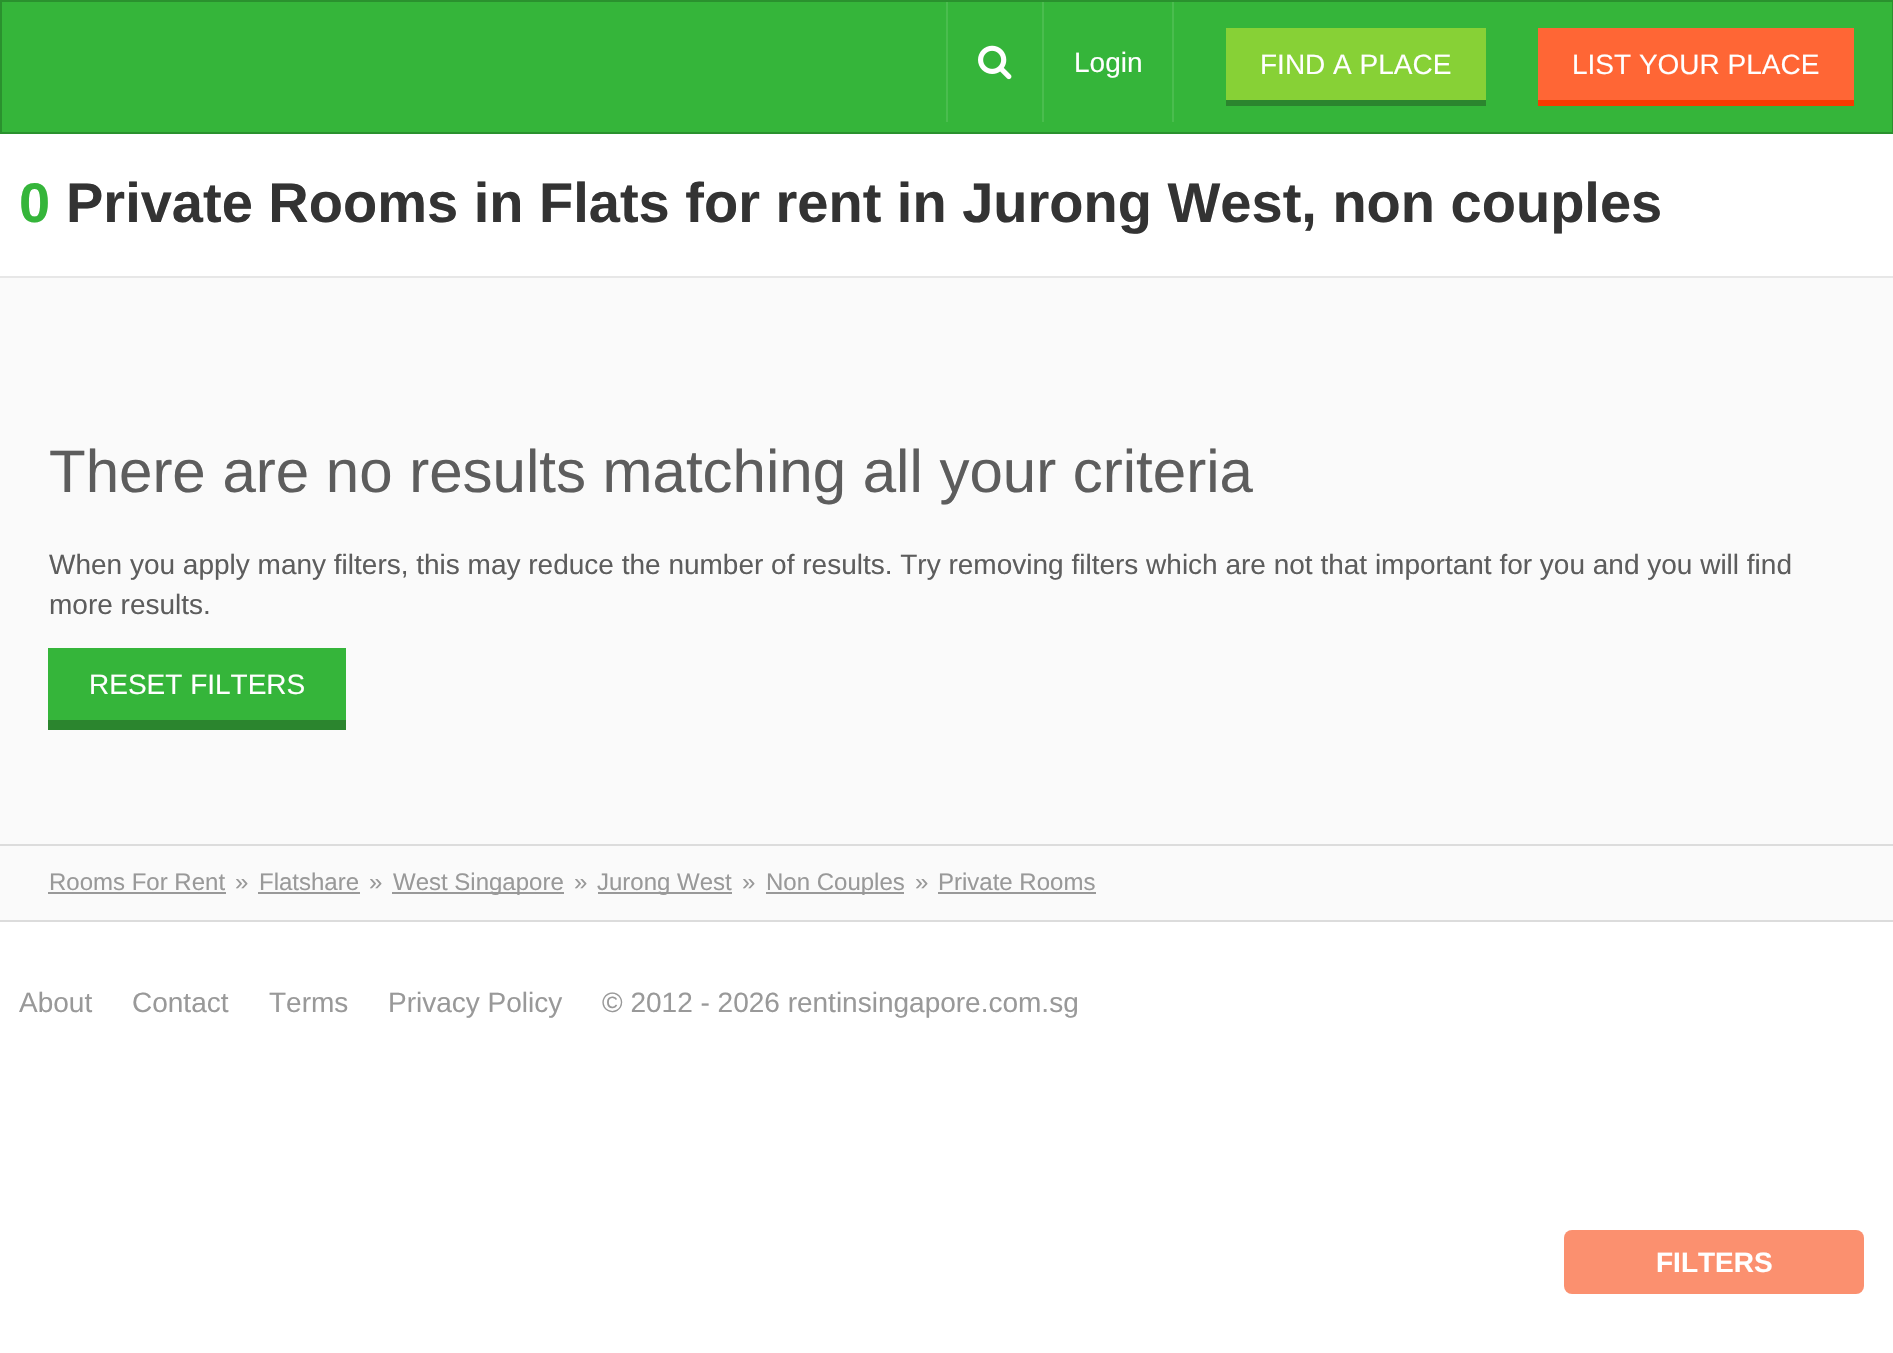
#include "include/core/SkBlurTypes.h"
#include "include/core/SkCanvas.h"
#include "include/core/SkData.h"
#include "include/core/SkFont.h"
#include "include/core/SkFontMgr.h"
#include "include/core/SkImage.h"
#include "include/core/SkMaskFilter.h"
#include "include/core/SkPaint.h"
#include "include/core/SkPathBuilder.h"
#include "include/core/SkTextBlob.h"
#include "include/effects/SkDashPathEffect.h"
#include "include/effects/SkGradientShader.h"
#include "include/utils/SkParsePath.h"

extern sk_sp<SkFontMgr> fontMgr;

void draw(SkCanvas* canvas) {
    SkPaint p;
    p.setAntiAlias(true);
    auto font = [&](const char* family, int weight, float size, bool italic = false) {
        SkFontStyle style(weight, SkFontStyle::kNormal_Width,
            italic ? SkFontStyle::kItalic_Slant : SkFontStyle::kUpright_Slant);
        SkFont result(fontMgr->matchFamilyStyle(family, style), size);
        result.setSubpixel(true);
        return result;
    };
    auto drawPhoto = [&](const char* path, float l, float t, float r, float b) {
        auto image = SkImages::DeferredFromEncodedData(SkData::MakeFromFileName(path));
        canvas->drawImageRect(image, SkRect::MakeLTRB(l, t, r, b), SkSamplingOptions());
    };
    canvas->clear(0xFFFFFFFF);
    p.setColor(0xFF35B53A);
    canvas->drawRect(SkRect::MakeLTRB(1, 1, 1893, 133), p);
    p.setStyle(SkPaint::kStroke_Style);
    p.setStrokeWidth(2);
    p.setColor(0xFF2A912E);
    canvas->drawRect(SkRect::MakeLTRB(1, 1, 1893, 133), p);
    p.setStyle(SkPaint::kFill_Style);
    p.setColor(0xFF4ABD4E);
    canvas->drawRect(SkRect::MakeLTRB(1042, 2, 1044, 122), p);
    canvas->drawRect(SkRect::MakeLTRB(946, 2, 948, 122), p);
    drawPhoto("media/1.png", 978, 45, 1012, 80);
    canvas->drawRect(SkRect::MakeLTRB(1172, 2, 1174, 122), p);
    auto font1 = font("Liberation Sans", 400, 28);
    p.setColor(0xFFFFFFFF);
    canvas->drawString("Login", 1074, 72, font1, p);
    p.setColor(0xFF87D136);
    canvas->drawRect(SkRect::MakeLTRB(1226, 28, 1486, 100), p);
    p.setColor(0xFF2B852E);
    canvas->drawRect(SkRect::MakeLTRB(1226, 100, 1486, 106), p);
    p.setColor(0xFFFFFFFF);
    canvas->drawString("FIND A PLACE", 1260, 74, font1, p);
    p.setColor(0xFFFF6635);
    canvas->drawRect(SkRect::MakeLTRB(1538, 28, 1854, 100), p);
    p.setColor(0xFFF73B00);
    canvas->drawRect(SkRect::MakeLTRB(1538, 100, 1854, 106), p);
    p.setColor(0xFFFFFFFF);
    canvas->drawString("LIST YOUR PLACE", 1572, 74, font1, p);
    p.setColor(0xFFE7E7E7);
    canvas->drawRect(SkRect::MakeLTRB(0, 276, 1893, 278), p);
    auto font2 = font("Liberation Sans", 700, 56);
    p.setColor(0xFF35B53A);
    canvas->drawString("0", 19, 222, font2, p);
    p.setColor(0xFF333333);
    canvas->drawString("Private Rooms in Flats for rent in Jurong West, non couples", 66, 222, font2, p);
    p.setColor(0xFFFAFAFA);
    canvas->drawRect(SkRect::MakeLTRB(0, 278, 1893, 844), p);
    auto font3 = font("Liberation Sans", 400, 60);
    p.setColor(0xFF5D5D5D);
    canvas->drawString("There are no results matching all your criteria", 49, 492, font3, p);
    canvas->drawString("When you apply many filters, this may reduce the number of results. Try removing filters which are not that important for you and you will find", 49, 574, font1, p);
    canvas->drawString("more results.", 49, 614, font1, p);
    p.setColor(0xFF35B53A);
    canvas->drawRect(SkRect::MakeLTRB(48, 648, 346, 720), p);
    p.setColor(0xFFFFFFFF);
    canvas->drawString("RESET FILTERS", 89, 694, font1, p);
    {
        const struct { float l, t, r, b; SkColor color; } items[] = {
            {48, 720, 346, 730, 0xFF2B852E},
            {0, 846, 1893, 920, 0xFFFAFAFA},
            {0, 844, 1893, 846, 0xFFDCDCDC},
        };
        for (auto [l, t, r, b, color] : items) {
            p.setColor(color);
            canvas->drawRect(SkRect::MakeLTRB(l, t, r, b), p);
        }
    }
    auto font4 = font("Liberation Sans", 400, 24);
    p.setColor(0xFF999999);
    canvas->drawString("Rooms For Rent", 49, 890, font4, p);
    canvas->drawRect(SkRect::MakeLTRB(48, 892, 226, 894), p);
    canvas->drawString("»", 235, 890, font4, p);
    canvas->drawString("Flatshare", 259, 890, font4, p);
    canvas->drawRect(SkRect::MakeLTRB(258, 892, 360, 894), p);
    canvas->drawString("»", 369, 890, font4, p);
    canvas->drawRect(SkRect::MakeLTRB(392, 892, 564, 894), p);
    canvas->drawString("West Singapore", 393, 890, font4, p);
    canvas->drawString("»", 574, 890, font4, p);
    canvas->drawRect(SkRect::MakeLTRB(598, 892, 732, 894), p);
    canvas->drawString("Jurong West", 597, 890, font4, p);
    canvas->drawString("»", 742, 890, font4, p);
    canvas->drawRect(SkRect::MakeLTRB(766, 892, 904, 894), p);
    {
        const struct { const char* s; float x, y; } items[] = {
            {"Non Couples", 766, 890},
            {"»", 915, 890},
            {"Private Rooms", 938, 890},
        };
        for (auto [s, x, y] : items) {
            canvas->drawString(s, x, y, font4, p);
        }
    }
    canvas->drawRect(SkRect::MakeLTRB(938, 892, 1096, 894), p);
    p.setColor(0xFFFB906F);
    canvas->drawRoundRect(SkRect::MakeLTRB(1564, 1230, 1864, 1294), 8, 8, p);
    auto font5 = font("Liberation Sans", 700, 28);
    p.setColor(0xFFFFFFFF);
    canvas->drawString("FILTERS", 1656, 1272, font5, p);
    p.setColor(0xFFDCDCDC);
    canvas->drawRect(SkRect::MakeLTRB(0, 920, 1893, 922), p);
    p.setColor(0xFF999999);
    {
        const struct { const char* s; float x, y; } items[] = {
            {"About", 19, 1012},
            {"Contact", 132, 1012},
            {"Terms", 269, 1012},
            {"Privacy Policy", 388, 1012},
            {"© 2012 - 2026 rentinsingapore.com.sg", 602, 1012},
        };
        for (auto [s, x, y] : items) {
            canvas->drawString(s, x, y, font1, p);
        }
    }
}
